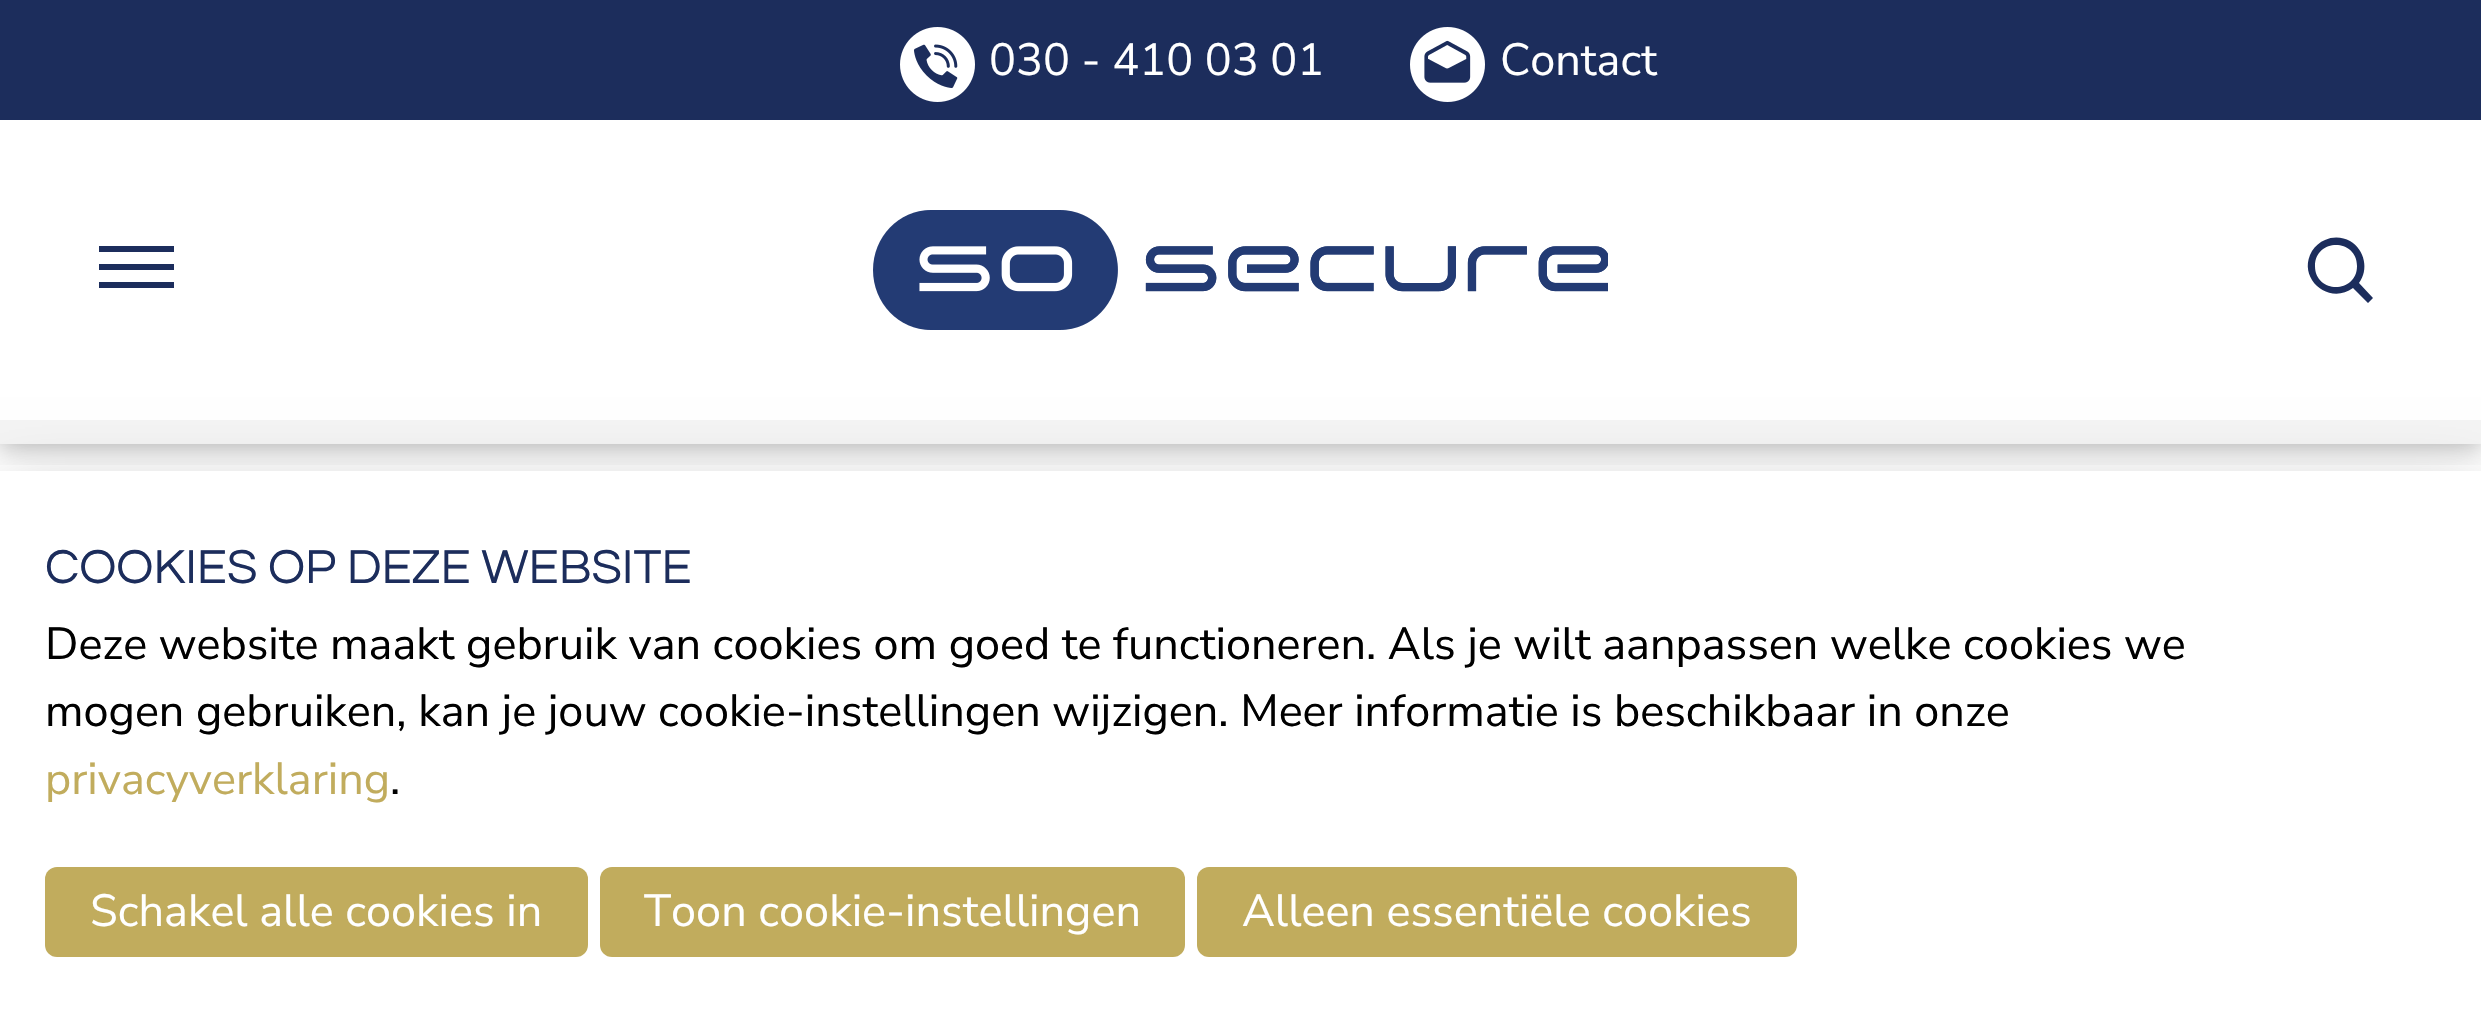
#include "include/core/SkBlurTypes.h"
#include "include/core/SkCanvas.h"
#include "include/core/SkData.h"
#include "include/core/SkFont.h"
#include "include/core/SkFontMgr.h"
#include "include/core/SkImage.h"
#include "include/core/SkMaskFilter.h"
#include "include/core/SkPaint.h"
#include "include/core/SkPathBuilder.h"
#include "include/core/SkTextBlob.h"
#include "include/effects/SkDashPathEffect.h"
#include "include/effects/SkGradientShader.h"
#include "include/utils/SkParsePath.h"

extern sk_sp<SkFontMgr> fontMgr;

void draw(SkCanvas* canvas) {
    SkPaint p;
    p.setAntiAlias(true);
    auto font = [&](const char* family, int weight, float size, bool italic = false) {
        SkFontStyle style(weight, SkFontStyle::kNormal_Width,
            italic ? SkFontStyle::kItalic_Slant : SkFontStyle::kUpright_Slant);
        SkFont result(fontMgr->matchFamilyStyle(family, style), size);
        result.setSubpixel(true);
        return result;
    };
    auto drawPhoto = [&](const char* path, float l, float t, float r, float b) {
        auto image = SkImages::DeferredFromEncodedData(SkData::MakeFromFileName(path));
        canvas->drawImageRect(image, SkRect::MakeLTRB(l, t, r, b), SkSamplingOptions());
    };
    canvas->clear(0xFFFFFFFF);
    canvas->save();
    canvas->clipRect(SkRect::MakeLTRB(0, 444, 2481, 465));
    p.setColor(0x4D000000);
    p.setMaskFilter(SkMaskFilter::MakeBlur(kNormal_SkBlurStyle, 12));
    canvas->drawRect(SkRect::MakeLTRB(0, 123, 2481, 447), p);
    p.setMaskFilter(nullptr);
    canvas->restore();
    p.setColor(0xFF1C2D5C);
    canvas->drawRect(SkRect::MakeLTRB(0, 0, 2481, 120), p);
    drawPhoto("media/1.png", 900, 27, 975, 102);
    auto font1 = font("Nunito Sans", 400, 45);
    p.setColor(0xFFFFFFFF);
    canvas->drawString("030 - 410 03 01", 989, 75, font1, p);
    drawPhoto("media/2.png", 1410, 27, 1485, 102);
    canvas->drawString("Contact", 1500, 75, font1, p);
    {
        const struct { float l, t, r, b; SkColor color; } items[] = {
            {0, 420, 2481, 444, 0xFFF4F4F4},
            {99, 246, 174, 252, 0xFF1C2D5C},
            {99, 264, 174, 270, 0xFF1C2D5C},
            {99, 282, 174, 288, 0xFF1C2D5C},
        };
        for (auto [l, t, r, b, color] : items) {
            p.setColor(color);
            canvas->drawRect(SkRect::MakeLTRB(l, t, r, b), p);
        }
    }
    drawPhoto("media/3.png", 873, 210, 1608, 330);
    canvas->drawPath(SkPathBuilder().moveTo(2373, 298).lineTo(2359, 283).cubicTo(2369, 270, 2365, 250, 2350, 241).cubicTo(2343, 237, 2333, 236, 2325, 240).cubicTo(2320, 242, 2315, 246, 2312, 251).cubicTo(2296, 278, 2329, 306, 2353, 288).lineTo(2368, 303).close().moveTo(2315, 266).cubicTo(2315, 238, 2357, 238, 2357, 266).cubicTo(2357, 294, 2315, 294, 2315, 266).close().detach(), p);
    p.setColor(0x33000000);
    p.setMaskFilter(SkMaskFilter::MakeBlur(kNormal_SkBlurStyle, 30));
    canvas->drawRect(SkRect::MakeLTRB(0, 486, 2481, 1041), p);
    p.setMaskFilter(nullptr);
    p.setColor(0xFFFFFFFF);
    canvas->drawRect(SkRect::MakeLTRB(0, 471, 2481, 1024), p);
    auto font2 = font("Questrial", 400, 49.5f);
    p.setColor(0xFF1C2D5C);
    canvas->drawString("COOKIES OP DEZE WEBSITE", 45, 583, font2, p);
    p.setColor(0xFF000000);
    canvas->drawString("Deze website maakt gebruik van cookies om goed te functioneren. Als je wilt aanpassen welke cookies we", 45, 659, font1, p);
    canvas->drawString("mogen gebruiken, kan je jouw cookie-instellingen wijzigen. Meer informatie is beschikbaar in onze", 45, 726, font1, p);
    p.setColor(0xFFC1AC5D);
    canvas->drawString("privacyverklaring", 45, 794, font1, p);
    p.setColor(0xFF000000);
    canvas->drawString(".", 390, 794, font1, p);
    p.setColor(0xFFC1AC5D);
    canvas->drawRoundRect(SkRect::MakeLTRB(45, 867, 588, 957), 12, 12, p);
    p.setColor(0xFFFFFFFF);
    canvas->drawString("Schakel alle cookies in", 90, 926, font1, p);
    p.setColor(0xFFC1AC5D);
    canvas->drawRoundRect(SkRect::MakeLTRB(600, 867, 1185, 957), 12, 12, p);
    p.setColor(0xFFFFFFFF);
    canvas->drawString("Toon cookie-instellingen", 644, 926, font1, p);
    p.setColor(0xFFC1AC5D);
    canvas->drawRoundRect(SkRect::MakeLTRB(1197, 867, 1797, 957), 12, 12, p);
    p.setColor(0xFFFFFFFF);
    canvas->drawString("Alleen essentiële cookies", 1242, 926, font1, p);
}
